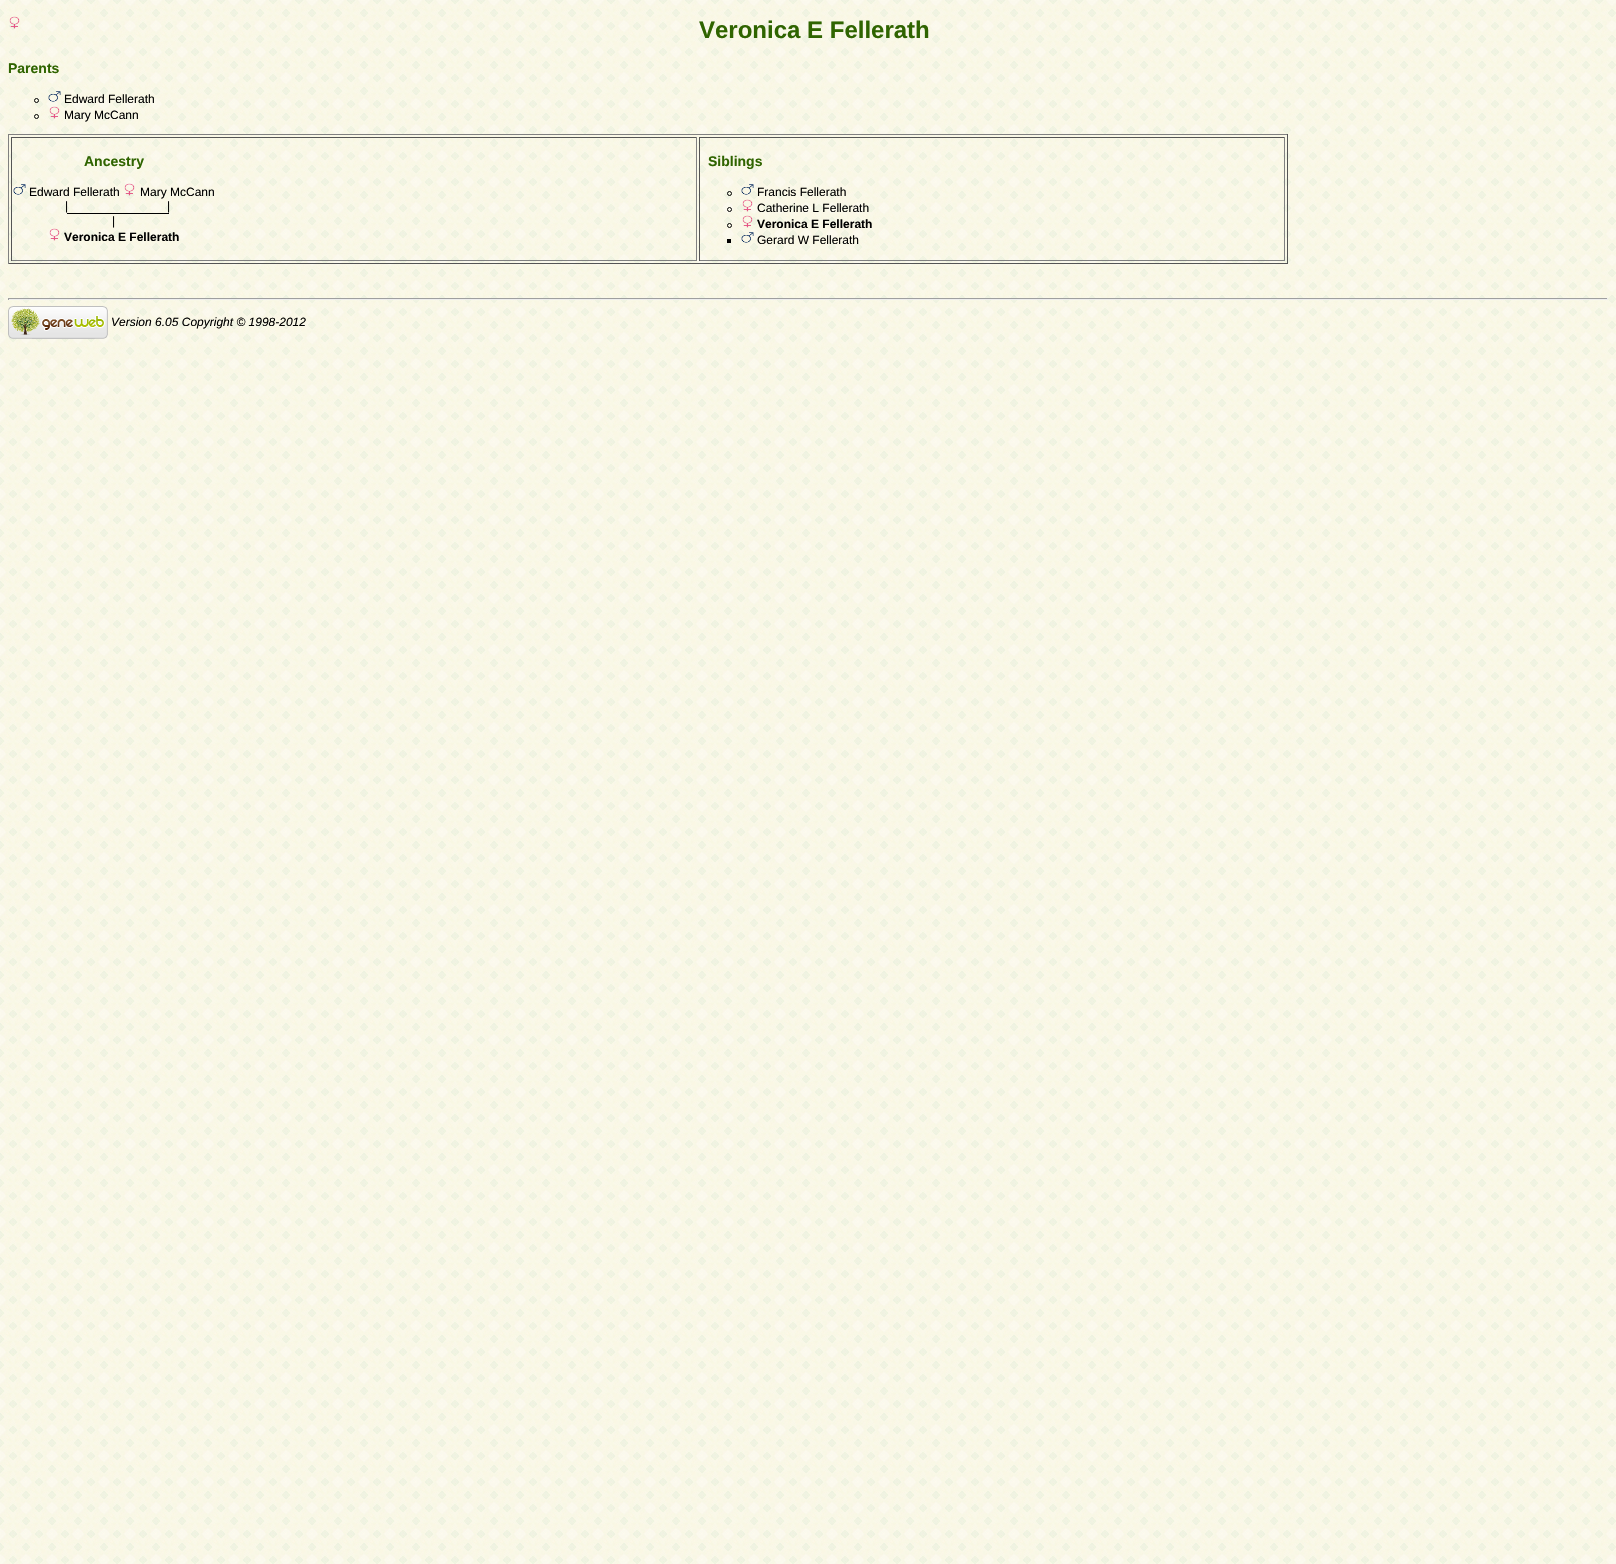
#include "include/core/SkBlurTypes.h"
#include "include/core/SkCanvas.h"
#include "include/core/SkData.h"
#include "include/core/SkFont.h"
#include "include/core/SkFontMgr.h"
#include "include/core/SkImage.h"
#include "include/core/SkMaskFilter.h"
#include "include/core/SkPaint.h"
#include "include/core/SkPathBuilder.h"
#include "include/core/SkTextBlob.h"
#include "include/effects/SkDashPathEffect.h"
#include "include/effects/SkGradientShader.h"
#include "include/utils/SkParsePath.h"

extern sk_sp<SkFontMgr> fontMgr;

void draw(SkCanvas* canvas) {
    SkPaint p;
    p.setAntiAlias(true);
    auto font = [&](const char* family, int weight, float size, bool italic = false) {
        SkFontStyle style(weight, SkFontStyle::kNormal_Width,
            italic ? SkFontStyle::kItalic_Slant : SkFontStyle::kUpright_Slant);
        SkFont result(fontMgr->matchFamilyStyle(family, style), size);
        result.setSubpixel(true);
        return result;
    };
    auto drawPhoto = [&](const char* path, float l, float t, float r, float b) {
        auto image = SkImages::DeferredFromEncodedData(SkData::MakeFromFileName(path));
        canvas->drawImageRect(image, SkRect::MakeLTRB(l, t, r, b), SkSamplingOptions());
    };
    canvas->clear(0xFFFFFFFF);
    drawPhoto("media/1.png", 0, 0, 1616, 1564);
    drawPhoto("media/2.png", 9, 16, 20, 29);
    auto font1 = font("Liberation Sans", 700, 24);
    p.setColor(0xFF2F6400);
    canvas->drawString("Veronica E Fellerath", 699, 38, font1, p);
    auto font2 = font("Liberation Sans", 700, 14);
    canvas->drawString("Parents", 8, 73, font2, p);
    p.setStyle(SkPaint::kStroke_Style);
    p.setStrokeWidth(1);
    p.setColor(0xFF000000);
    canvas->drawCircle(36.5f, 100.5f, 2, p);
    drawPhoto("media/3.png", 48, 91, 61, 102);
    auto font3 = font("Liberation Sans", 400, 12);
    p.setStyle(SkPaint::kFill_Style);
    canvas->drawString("Edward Fellerath", 64, 103, font3, p);
    p.setStyle(SkPaint::kStroke_Style);
    canvas->drawCircle(36.5f, 116.5f, 2, p);
    drawPhoto("media/4.png", 49, 106, 60, 119);
    p.setStyle(SkPaint::kFill_Style);
    canvas->drawString("Mary McCann", 64, 119, font3, p);
    {
        const struct { float l, t, r, b; SkColor color; } items[] = {
            {8, 134, 1288, 135, 0xFF808080},
            {1287, 134, 1288, 264, 0xFF555555},
            {8, 263, 1288, 264, 0xFF555555},
            {8, 134, 9, 264, 0xFF808080},
            {11, 137, 697, 138, 0xFF555555},
            {696, 137, 697, 261, 0xFF808080},
            {11, 260, 697, 261, 0xFF808080},
            {11, 137, 12, 261, 0xFF555555},
        };
        for (auto [l, t, r, b, color] : items) {
            p.setColor(color);
            canvas->drawRect(SkRect::MakeLTRB(l, t, r, b), p);
        }
    }
    p.setColor(0xFF2F6400);
    canvas->drawString("Ancestry", 84, 166, font2, p);
    drawPhoto("media/5.png", 13, 184, 26, 195);
    p.setColor(0xFF000000);
    canvas->drawString("Edward Fellerath", 29, 196, font3, p);
    drawPhoto("media/6.png", 124, 183, 135, 196);
    {
        const struct { const char* s; float x, y; } items[] = {
            {"Mary McCann", 140, 196},
            {"|", 65, 210},
            {"|", 167, 210},
        };
        for (auto [s, x, y] : items) {
            canvas->drawString(s, x, y, font3, p);
        }
    }
    canvas->drawRect(SkRect::MakeLTRB(67, 213, 169, 214), p);
    canvas->drawString("|", 112, 225, font3, p);
    drawPhoto("media/7.png", 49, 228, 60, 241);
    auto font4 = font("Liberation Sans", 700, 12);
    canvas->drawString("Veronica E Fellerath", 64, 241, font4, p);
    {
        const struct { float l, t, r, b; SkColor color; } items[] = {
            {699, 137, 1285, 138, 0xFF555555},
            {1284, 137, 1285, 261, 0xFF808080},
            {699, 260, 1285, 261, 0xFF808080},
            {699, 137, 700, 261, 0xFF555555},
        };
        for (auto [l, t, r, b, color] : items) {
            p.setColor(color);
            canvas->drawRect(SkRect::MakeLTRB(l, t, r, b), p);
        }
    }
    p.setColor(0xFF2F6400);
    canvas->drawString("Siblings", 708, 166, font2, p);
    p.setStyle(SkPaint::kStroke_Style);
    p.setColor(0xFF000000);
    canvas->drawCircle(729.5f, 193.5f, 2, p);
    drawPhoto("media/8.png", 741, 184, 754, 195);
    p.setStyle(SkPaint::kFill_Style);
    canvas->drawString("Francis Fellerath", 757, 196, font3, p);
    p.setStyle(SkPaint::kStroke_Style);
    canvas->drawCircle(729.5f, 209.5f, 2, p);
    drawPhoto("media/9.png", 742, 199, 753, 212);
    p.setStyle(SkPaint::kFill_Style);
    canvas->drawString("Catherine L Fellerath", 757, 212, font3, p);
    p.setStyle(SkPaint::kStroke_Style);
    canvas->drawCircle(729.5f, 225.5f, 2, p);
    drawPhoto("media/10.png", 742, 215, 753, 228);
    p.setStyle(SkPaint::kFill_Style);
    canvas->drawString("Veronica E Fellerath", 757, 228, font4, p);
    canvas->drawRect(SkRect::MakeLTRB(727, 239, 731, 243), p);
    drawPhoto("media/11.png", 741, 232, 754, 243);
    canvas->drawString("Gerard W Fellerath", 757, 244, font3, p);
    {
        const struct { float l, t, r, b; SkColor color; } items[] = {
            {8, 298, 1608, 299, 0xFF9F9F9F},
            {1607, 298, 1608, 300, 0xFFEEEEEE},
            {8, 299, 1608, 300, 0xFFEEEEEE},
            {8, 298, 9, 300, 0xFF9F9F9F},
        };
        for (auto [l, t, r, b, color] : items) {
            p.setColor(color);
            canvas->drawRect(SkRect::MakeLTRB(l, t, r, b), p);
        }
    }
    drawPhoto("media/12.png", 8, 306, 108, 339);
    auto font5 = font("Liberation Sans", 400, 12, true);
    p.setColor(0xFF000000);
    canvas->drawString("Version 6.05 Copyright © 1998-2012", 111, 326, font5, p);
}
